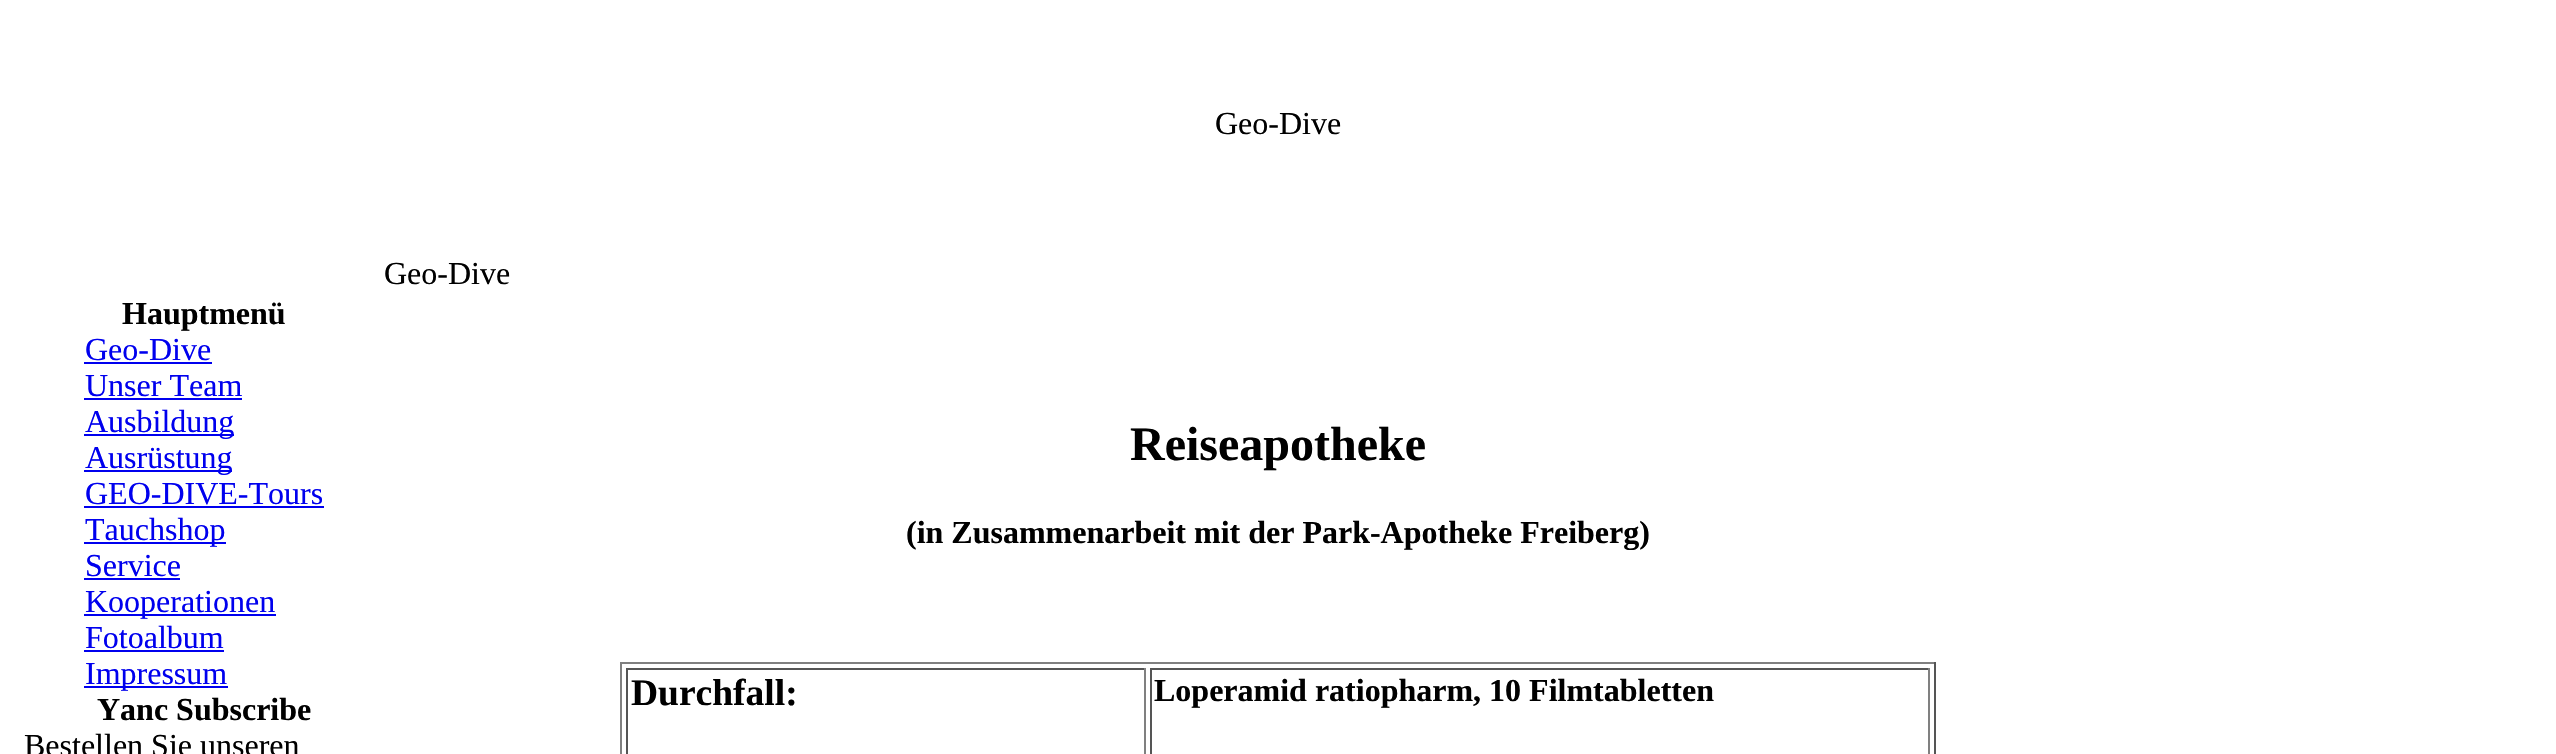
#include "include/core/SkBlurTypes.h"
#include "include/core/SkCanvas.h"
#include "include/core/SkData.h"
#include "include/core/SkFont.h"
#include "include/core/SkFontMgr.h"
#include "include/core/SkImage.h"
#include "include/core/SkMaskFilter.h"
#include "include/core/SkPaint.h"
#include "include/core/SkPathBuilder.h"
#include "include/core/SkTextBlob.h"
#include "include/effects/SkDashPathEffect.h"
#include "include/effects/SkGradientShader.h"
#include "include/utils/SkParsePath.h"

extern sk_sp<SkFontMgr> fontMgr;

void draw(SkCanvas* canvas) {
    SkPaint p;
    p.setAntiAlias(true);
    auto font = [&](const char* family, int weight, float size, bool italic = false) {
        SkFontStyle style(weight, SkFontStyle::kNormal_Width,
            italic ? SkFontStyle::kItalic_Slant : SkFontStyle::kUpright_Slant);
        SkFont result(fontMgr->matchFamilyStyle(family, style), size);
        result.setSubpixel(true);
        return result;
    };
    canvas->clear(0xFFFFFFFF);
    auto font1 = font("Liberation Serif", 400, 32);
    p.setColor(0xFF000000);
    canvas->drawString("Geo-Dive", 1215, 134, font1, p);
    canvas->drawString("Geo-Dive", 384, 284, font1, p);
    auto font2 = font("Liberation Serif", 700, 32);
    canvas->drawString("Hauptmenü", 122, 324, font2, p);
    p.setColor(0xFF0000EE);
    canvas->drawString("Geo-Dive", 85, 360, font1, p);
    canvas->drawRect(SkRect::MakeLTRB(84, 362, 212, 364), p);
    canvas->drawString("Unser Team", 85, 396, font1, p);
    canvas->drawRect(SkRect::MakeLTRB(84, 398, 242, 400), p);
    canvas->drawRect(SkRect::MakeLTRB(84, 434, 234, 436), p);
    canvas->drawString("Ausbildung", 85, 432, font1, p);
    canvas->drawRect(SkRect::MakeLTRB(84, 470, 232, 472), p);
    canvas->drawString("Ausrüstung", 85, 468, font1, p);
    canvas->drawString("GEO-DIVE-Tours", 85, 504, font1, p);
    canvas->drawRect(SkRect::MakeLTRB(84, 506, 324, 508), p);
    canvas->drawRect(SkRect::MakeLTRB(84, 542, 226, 544), p);
    canvas->drawString("Tauchshop", 85, 540, font1, p);
    canvas->drawString("Service", 85, 576, font1, p);
    canvas->drawRect(SkRect::MakeLTRB(84, 578, 180, 580), p);
    canvas->drawRect(SkRect::MakeLTRB(84, 614, 276, 616), p);
    canvas->drawString("Kooperationen", 85, 612, font1, p);
    canvas->drawString("Fotoalbum", 85, 648, font1, p);
    canvas->drawRect(SkRect::MakeLTRB(84, 650, 224, 652), p);
    canvas->drawRect(SkRect::MakeLTRB(84, 686, 228, 688), p);
    canvas->drawString("Impressum", 85, 684, font1, p);
    p.setColor(0xFF000000);
    canvas->drawString("Yanc Subscribe", 97, 720, font2, p);
    canvas->drawString("Bestellen Sie unseren", 24, 756, font1, p);
    auto font3 = font("Liberation Serif", 700, 48);
    canvas->drawString("Reiseapotheke", 1130, 460, font3, p);
    canvas->drawString("(in Zusammenarbeit mit der Park-Apotheke Freiberg)", 906, 543, font2, p);
    {
        const struct { float l, t, r, b; SkColor color; } items[] = {
            {620, 662, 1936, 664, 0xFF808080},
            {1934, 662, 1936, 754, 0xFF555555},
            {620, 662, 622, 754, 0xFF808080},
            {626, 668, 1146, 670, 0xFF555555},
            {1144, 668, 1146, 754, 0xFF808080},
            {626, 668, 628, 754, 0xFF555555},
        };
        for (auto [l, t, r, b, color] : items) {
            p.setColor(color);
            canvas->drawRect(SkRect::MakeLTRB(l, t, r, b), p);
        }
    }
    auto font4 = font("Liberation Serif", 700, 37.5f);
    p.setColor(0xFF000000);
    canvas->drawString("Durchfall:", 631, 705, font4, p);
    {
        const struct { float l, t, r, b; SkColor color; } items[] = {
            {1150, 668, 1930, 670, 0xFF555555},
            {1928, 668, 1930, 754, 0xFF808080},
            {1150, 668, 1152, 754, 0xFF555555},
        };
        for (auto [l, t, r, b, color] : items) {
            p.setColor(color);
            canvas->drawRect(SkRect::MakeLTRB(l, t, r, b), p);
        }
    }
    p.setColor(0xFF000000);
    canvas->drawString("Loperamid ratiopharm, 10 Filmtabletten", 1154, 701, font2, p);
}
